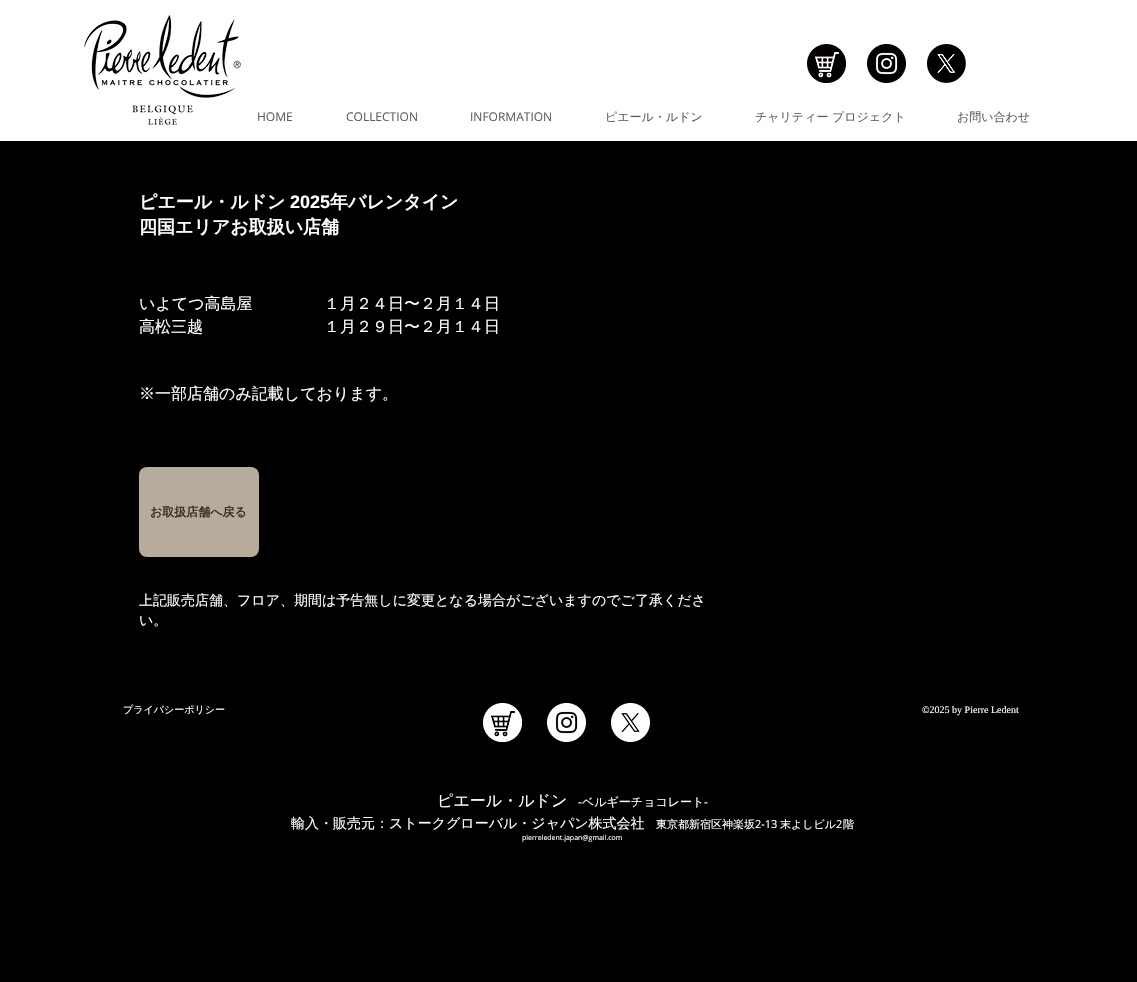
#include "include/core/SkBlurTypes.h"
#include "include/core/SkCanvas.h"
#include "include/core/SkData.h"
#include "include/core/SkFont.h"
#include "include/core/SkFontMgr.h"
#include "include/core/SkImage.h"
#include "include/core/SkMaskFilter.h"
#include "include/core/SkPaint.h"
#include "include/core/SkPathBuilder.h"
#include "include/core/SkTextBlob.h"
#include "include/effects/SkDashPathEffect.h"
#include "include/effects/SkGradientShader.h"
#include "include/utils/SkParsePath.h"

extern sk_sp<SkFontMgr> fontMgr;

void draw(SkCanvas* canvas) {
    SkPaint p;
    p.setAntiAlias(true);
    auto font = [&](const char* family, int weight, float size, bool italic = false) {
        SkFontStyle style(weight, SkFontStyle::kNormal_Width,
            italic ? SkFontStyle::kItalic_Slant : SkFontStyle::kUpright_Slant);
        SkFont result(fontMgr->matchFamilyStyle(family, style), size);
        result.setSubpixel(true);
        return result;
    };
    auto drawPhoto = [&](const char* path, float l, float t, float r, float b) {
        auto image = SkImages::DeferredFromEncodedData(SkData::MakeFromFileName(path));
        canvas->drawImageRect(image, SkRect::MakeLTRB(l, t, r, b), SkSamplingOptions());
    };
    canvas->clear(0xFF000000);
    p.setColor(0xFFFFFFFF);
    canvas->drawRect(SkRect::MakeLTRB(0, 0, 1137, 141), p);
    drawPhoto("media/1.png", 84, 15, 241, 125);
    drawPhoto("media/2.png", 807, 44, 846, 83);
    drawPhoto("media/3.png", 867, 44, 906, 83);
    drawPhoto("media/4.png", 927, 44, 966, 83);
    auto font1 = font("Open Sans", 400, 12);
    p.setColor(0xFF605E5E);
    {
        const struct { const char* s; float x, y; } items[] = {
            {"HOME", 257, 121},
            {"COLLECTION", 346, 121},
            {"INFORMATION", 470, 121},
        };
        for (auto [s, x, y] : items) {
            canvas->drawString(s, x, y, font1, p);
        }
    }
    auto font2 = font("WenQuanYi Zen Hei", 500, 12);
    {
        const struct { const char* s; float x, y; } items[] = {
            {"ピエール・ルドン", 605, 121},
            {"チャリティー プロジェクト", 755, 121},
            {"お問い合わせ", 957, 121},
        };
        for (auto [s, x, y] : items) {
            canvas->drawString(s, x, y, font2, p);
        }
    }
    auto font3 = font("WenQuanYi Zen Hei", 700, 18);
    p.setColor(0xFFFFFFFF);
    canvas->drawString("ピエール・ルドン", 139, 208, font3, p);
    auto font4 = font("Liberation Sans", 700, 18);
    canvas->drawString("2025", 290, 208, font4, p);
    canvas->drawString("年バレンタイン", 330, 208, font3, p);
    canvas->drawString("四国エリアお取扱い店舗", 139, 233, font3, p);
    auto font5 = font("WenQuanYi Zen Hei", 500, 16);
    {
        const struct { const char* s; float x, y; } items[] = {
            {"いよてつ高島屋", 139, 309},
            {"高松三越", 139, 332},
            {"※一部店舗のみ記載しております。", 139, 399},
            {"１月２４日〜２月１４日", 324, 309},
            {"１月２９日〜２月１４日", 324, 332},
        };
        for (auto [s, x, y] : items) {
            canvas->drawString(s, x, y, font5, p);
        }
    }
    p.setColor(0xFFB7AC9C);
    canvas->drawRoundRect(SkRect::MakeLTRB(139, 467, 259, 557), 8, 8, p);
    auto font6 = font("WenQuanYi Zen Hei", 700, 12);
    p.setColor(0xFF3E3322);
    canvas->drawString("お取扱店舗へ戻る", 150, 516, font6, p);
    auto font7 = font("WenQuanYi Zen Hei", 500, 14);
    p.setColor(0xFFFFFFFF);
    canvas->drawString("上記販売店舗、フロア、期間は予告無しに変更となる場合がございますのでご了承くださ", 139, 605, font7, p);
    canvas->drawString("い。", 139, 625, font7, p);
    auto font8 = font("WenQuanYi Zen Hei", 500, 10);
    canvas->drawString("プライバシーポリシー", 123, 713, font8, p);
    drawPhoto("media/5.png", 483, 703, 522, 742);
    drawPhoto("media/6.png", 547, 703, 586, 742);
    drawPhoto("media/7.png", 611, 703, 650, 742);
    auto font9 = font("Liberation Serif", 400, 10);
    canvas->drawString("©2025 by Pierre Ledent", 922, 713, font9, p);
    canvas->drawString("ピエール・ルドン", 437, 806, font5, p);
    canvas->drawString("-", 578, 806, font1, p);
    canvas->drawString("ベルギーチョコレート", 582, 806, font2, p);
    canvas->drawString("-", 704, 806, font1, p);
    canvas->drawString("輸入・販売元：ストークグローバル・ジャパン株式会社", 291, 828, font7, p);
    auto font10 = font("WenQuanYi Zen Hei", 500, 11);
    canvas->drawString("東京都新宿区神楽坂", 656, 828, font10, p);
    auto font11 = font("Open Sans", 400, 11);
    canvas->drawString("2-13", 755, 828, font11, p);
    canvas->drawString("末よしビル", 780, 828, font10, p);
    canvas->drawString("2", 836, 828, font11, p);
    canvas->drawString("階", 843, 828, font10, p);
    auto font12 = font("Open Sans", 400, 7);
    canvas->drawString("pierreledent.japan@gmail.com", 522, 840, font12, p);
}
